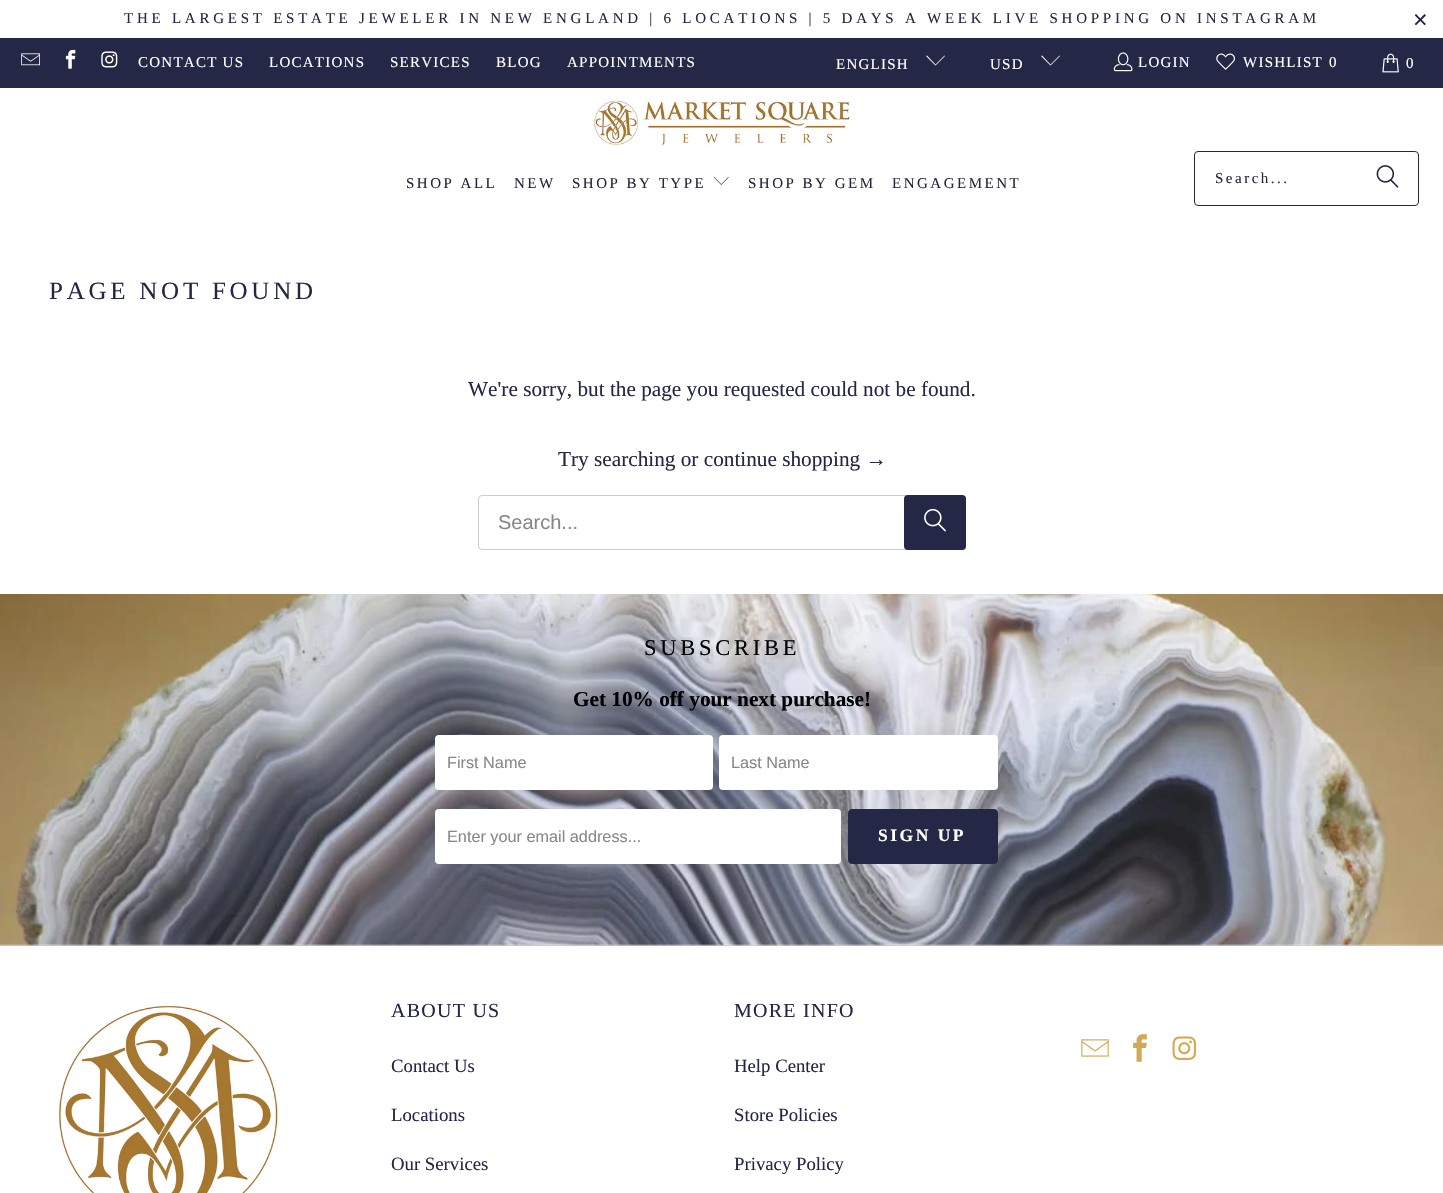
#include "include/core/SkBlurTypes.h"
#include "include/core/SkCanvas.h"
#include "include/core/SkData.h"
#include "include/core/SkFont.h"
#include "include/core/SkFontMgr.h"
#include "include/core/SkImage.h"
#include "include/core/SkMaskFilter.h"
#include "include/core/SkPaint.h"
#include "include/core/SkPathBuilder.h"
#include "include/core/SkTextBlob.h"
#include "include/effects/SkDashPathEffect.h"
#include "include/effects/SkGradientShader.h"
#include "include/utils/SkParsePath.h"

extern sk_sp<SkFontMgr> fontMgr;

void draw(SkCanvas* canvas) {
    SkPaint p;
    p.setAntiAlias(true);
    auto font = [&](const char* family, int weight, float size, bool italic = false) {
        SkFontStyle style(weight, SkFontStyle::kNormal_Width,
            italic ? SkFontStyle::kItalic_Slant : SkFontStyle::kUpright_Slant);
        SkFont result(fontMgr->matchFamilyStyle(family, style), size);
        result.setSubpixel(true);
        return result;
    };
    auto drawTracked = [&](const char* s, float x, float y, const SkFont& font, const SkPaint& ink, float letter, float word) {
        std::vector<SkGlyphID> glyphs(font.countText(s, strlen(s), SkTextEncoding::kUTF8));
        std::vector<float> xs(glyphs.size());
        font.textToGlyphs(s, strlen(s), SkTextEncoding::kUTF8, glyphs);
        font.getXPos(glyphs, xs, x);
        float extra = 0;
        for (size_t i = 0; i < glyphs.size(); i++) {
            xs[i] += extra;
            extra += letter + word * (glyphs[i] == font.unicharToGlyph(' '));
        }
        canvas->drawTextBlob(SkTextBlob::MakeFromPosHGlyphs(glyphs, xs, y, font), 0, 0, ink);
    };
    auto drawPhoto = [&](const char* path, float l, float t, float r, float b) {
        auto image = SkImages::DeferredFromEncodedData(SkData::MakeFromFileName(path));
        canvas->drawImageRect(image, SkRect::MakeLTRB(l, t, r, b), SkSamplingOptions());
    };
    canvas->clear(0xFFFFFFFF);
    auto font1 = font("Liberation Serif", 400, 15);
    p.setColor(0xFF242745);
    drawTracked("THE LARGEST ESTATE JEWELER IN NEW ENGLAND | 6 LOCATIONS | 5 DAYS A WEEK LIVE SHOPPING ON INSTAGRAM", 124, 23, font1, p, 3.75f, 0);
    auto font2 = font("Liberation Sans", 400, 25);
    drawTracked("×", 1413, 28, font2, p, 3.75f, 0);
    canvas->drawRect(SkRect::MakeLTRB(0, 38, 1443, 88), p);
    drawPhoto("media/1.png", 21, 53, 40, 66);
    drawPhoto("media/2.png", 65, 49, 76, 69);
    drawPhoto("media/3.png", 101, 51, 118, 68);
    p.setColor(0xFFFFFFFF);
    {
        const struct { const char* s; float x, y; } items[] = {
            {"CONTACT US", 138, 67},
            {"LOCATIONS", 269, 67},
            {"SERVICES", 390, 67},
            {"BLOG", 496, 67},
            {"APPOINTMENTS", 567, 67},
            {"ENGLISH", 836, 69},
        };
        for (auto [s, x, y] : items) {
            drawTracked(s, x, y, font1, p, 1.25f, 0);
        }
    }
    canvas->drawPath(SkPathBuilder().moveTo(935.5f, 65.5f).lineTo(926, 56).lineTo(927, 55.5f).lineTo(935.5f, 64.5f).lineTo(944.5f, 55.5f).lineTo(945, 56).close().detach(), p);
    drawTracked("USD", 990, 69, font1, p, 1.25f, 0);
    canvas->drawPath(SkPathBuilder().moveTo(1050.5f, 65.5f).lineTo(1041, 56).lineTo(1042, 55.5f).lineTo(1050.5f, 64.5f).lineTo(1059.5f, 55.5f).lineTo(1060, 56).close().detach(), p);
    drawPhoto("media/4.png", 1113, 52, 1133, 72);
    drawTracked("LOGIN", 1138, 67, font1, p, 1.25f, 0);
    drawPhoto("media/5.png", 1216, 53, 1235, 70);
    drawTracked("WISHLIST", 1243, 67, font1, p, 1.25f, 0);
    drawTracked("0", 1329, 67, font1, p, 1.25f, 0);
    drawPhoto("media/6.png", 1382, 53, 1399, 73);
    drawTracked("0", 1406, 68, font1, p, 1.25f, 0);
    drawPhoto("media/7.png", 593, 100, 850, 146);
    p.setColor(0xFF25263E);
    {
        const struct { const char* s; float x, y; } items[] = {
            {"SHOP ALL", 406, 188},
            {"NEW", 514, 188},
            {"SHOP BY TYPE", 572, 188},
        };
        for (auto [s, x, y] : items) {
            drawTracked(s, x, y, font1, p, 2.5f, 0);
        }
    }
    drawPhoto("media/8.png", 713, 177, 729, 185);
    drawTracked("SHOP BY GEM", 748, 188, font1, p, 2.5f, 0);
    drawTracked("ENGAGEMENT", 892, 188, font1, p, 2.5f, 0);
    p.setStyle(SkPaint::kStroke_Style);
    p.setStrokeWidth(1);
    canvas->drawRoundRect(SkRect::MakeLTRB(1194.5f, 151.5f, 1418.5f, 205.5f), 3.5f, 3.5f, p);
    p.setStyle(SkPaint::kFill_Style);
    drawTracked("Search...", 1215, 183, font1, p, 2.5f, 0);
    drawPhoto("media/9.png", 1376, 165, 1399, 188);
    auto font3 = font("Liberation Serif", 400, 25);
    p.setColor(0xFF242745);
    drawTracked("PAGE NOT FOUND", 49, 299, font3, p, 3.75f, 0);
    auto font4 = font("Liberation Serif", 400, 21.25f);
    canvas->drawString("We're sorry, but the page you requested could not be found.", 468, 396, font4, p);
    canvas->drawString("Try searching or continue shopping →", 558, 466, font4, p);
    p.setStyle(SkPaint::kStroke_Style);
    p.setColor(0xFFCCCCCC);
    canvas->drawRoundRect(SkRect::MakeLTRB(478.5f, 495.5f, 965.5f, 549.5f), 3.5f, 3.5f, p);
    auto font5 = font("Liberation Sans", 400, 20);
    p.setStyle(SkPaint::kFill_Style);
    p.setColor(0xFF888888);
    canvas->drawString("Search...", 498, 529, font5, p);
    p.setColor(0xFF242745);
    canvas->drawRoundRect(SkRect::MakeLTRB(904, 495, 966, 550), 4, 4, p);
    drawPhoto("media/10.png", 924, 508, 946, 532);
    p.setColor(0xFFCCCCCC);
    canvas->drawRect(SkRect::MakeLTRB(0, 945, 1443, 946), p);
    drawPhoto("media/11.png", 0, 594, 1443, 946);
    auto font6 = font("Liberation Serif", 400, 22.5f);
    p.setColor(0xFF000000);
    drawTracked("SUBSCRIBE", 644, 655, font6, p, 3.75f, 0);
    auto font7 = font("Liberation Serif", 700, 21.25f);
    canvas->drawString("Get 10% off your next purchase!", 573, 706, font7, p);
    p.setColor(0xFFFFFFFF);
    canvas->drawRoundRect(SkRect::MakeLTRB(435, 735, 713, 790), 4, 4, p);
    auto font8 = font("Liberation Sans", 400, 16.25f);
    p.setColor(0xFF888888);
    canvas->drawString("First Name", 447, 768, font8, p);
    p.setColor(0xFFFFFFFF);
    canvas->drawRoundRect(SkRect::MakeLTRB(719, 735, 998, 790), 4, 4, p);
    p.setColor(0xFF888888);
    canvas->drawString("Last Name", 731, 768, font8, p);
    p.setColor(0xFFFFFFFF);
    canvas->drawRoundRect(SkRect::MakeLTRB(435, 809, 841, 864), 4, 4, p);
    canvas->save();
    canvas->clipRect(SkRect::MakeLTRB(448, 826, 829, 845));
    p.setColor(0xFF888888);
    canvas->drawString("Enter your email address...", 447, 842, font8, p);
    canvas->restore();
    p.setColor(0xFF242745);
    canvas->drawRoundRect(SkRect::MakeLTRB(848.5f, 809.5f, 997.5f, 863.5f), 3.5f, 3.5f, p);
    p.setStyle(SkPaint::kStroke_Style);
    canvas->drawRoundRect(SkRect::MakeLTRB(848.5f, 809.5f, 997.5f, 863.5f), 3.5f, 3.5f, p);
    auto font9 = font("Liberation Serif", 700, 17.5f);
    p.setStyle(SkPaint::kFill_Style);
    p.setColor(0xFFFFFFFF);
    drawTracked("SIGN UP", 878, 841, font9, p, 2.5f, 0);
    drawPhoto("media/12.png", 58, 1005, 278, 1193);
    auto font10 = font("Liberation Serif", 400, 20);
    p.setColor(0xFF242745);
    drawTracked("ABOUT US", 391, 1017, font10, p, 1.25f, 0);
    auto font11 = font("Liberation Serif", 400, 18.75f);
    {
        const struct { const char* s; float x, y; } items[] = {
            {"Contact Us", 391, 1072},
            {"Locations", 391, 1121},
            {"Our Services", 391, 1170},
        };
        for (auto [s, x, y] : items) {
            canvas->drawString(s, x, y, font11, p);
        }
    }
    drawTracked("MORE INFO", 734, 1017, font10, p, 1.25f, 0);
    {
        const struct { const char* s; float x, y; } items[] = {
            {"Help Center", 734, 1072},
            {"Store Policies", 734, 1121},
            {"Privacy Policy", 734, 1170},
        };
        for (auto [s, x, y] : items) {
            canvas->drawString(s, x, y, font11, p);
        }
    }
    drawPhoto("media/13.png", 1081, 1039, 1109, 1057);
    drawPhoto("media/14.png", 1133, 1034, 1147, 1062);
    drawPhoto("media/15.png", 1172, 1036, 1197, 1060);
}
